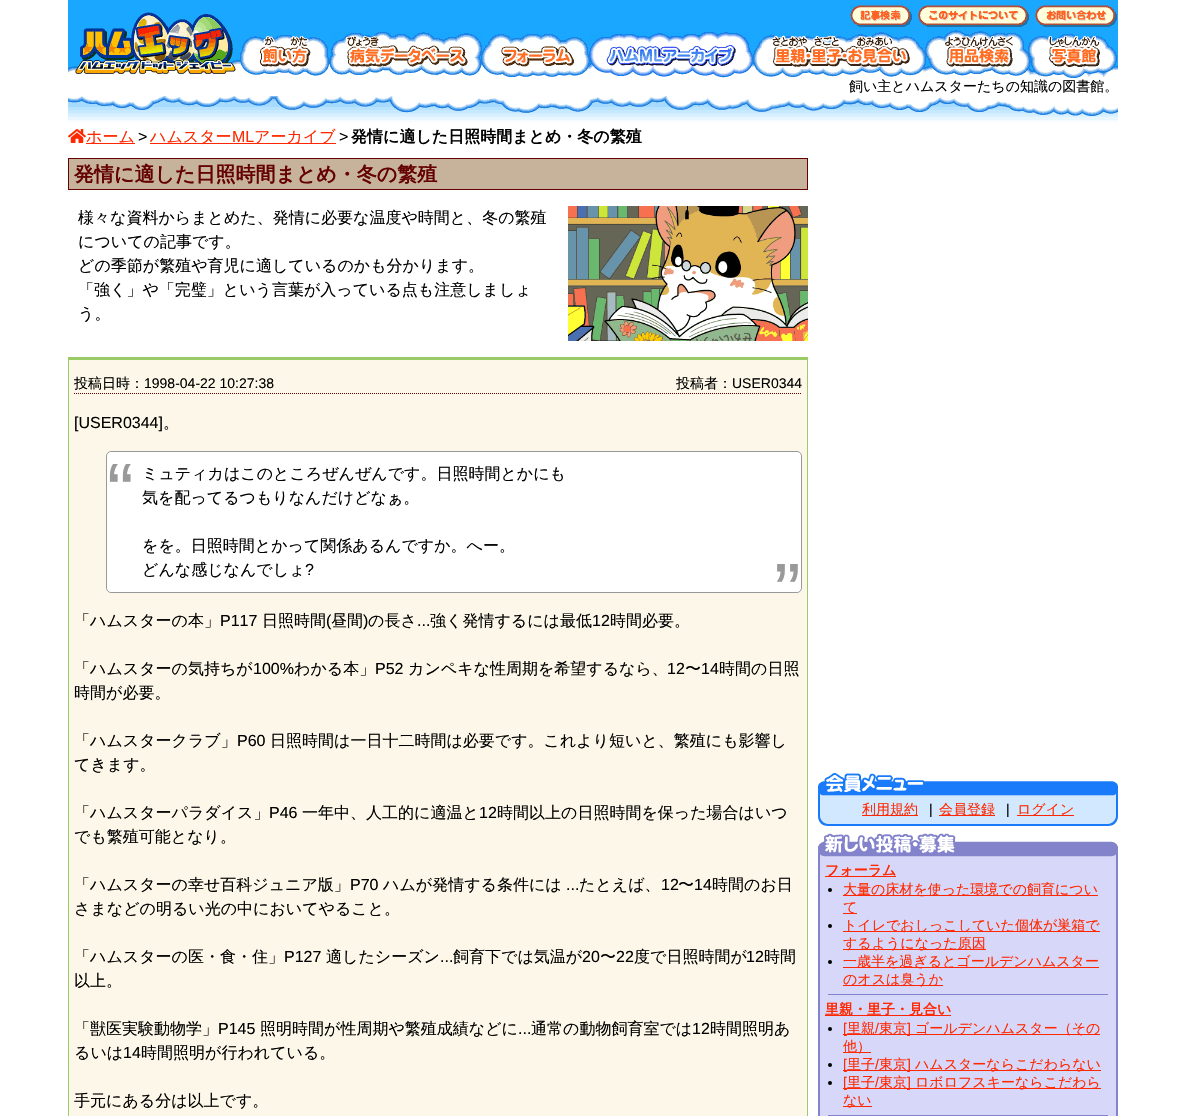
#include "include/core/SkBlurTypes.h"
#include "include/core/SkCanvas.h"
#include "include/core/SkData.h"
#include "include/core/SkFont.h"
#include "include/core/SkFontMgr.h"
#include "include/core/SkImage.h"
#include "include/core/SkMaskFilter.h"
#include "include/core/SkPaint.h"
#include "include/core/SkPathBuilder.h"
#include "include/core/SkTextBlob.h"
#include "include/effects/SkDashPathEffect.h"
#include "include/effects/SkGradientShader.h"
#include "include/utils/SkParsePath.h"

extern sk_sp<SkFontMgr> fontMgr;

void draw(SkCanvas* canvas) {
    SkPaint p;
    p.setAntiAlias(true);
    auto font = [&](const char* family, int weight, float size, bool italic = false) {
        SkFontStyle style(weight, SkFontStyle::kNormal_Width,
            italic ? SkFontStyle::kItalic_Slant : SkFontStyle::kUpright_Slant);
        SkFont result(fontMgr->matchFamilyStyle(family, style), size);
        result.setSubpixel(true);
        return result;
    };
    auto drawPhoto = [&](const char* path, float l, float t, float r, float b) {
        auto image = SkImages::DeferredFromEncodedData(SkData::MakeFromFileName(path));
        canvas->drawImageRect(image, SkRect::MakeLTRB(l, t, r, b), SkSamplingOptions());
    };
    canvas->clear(0xFFFFFFFF);
    drawPhoto("media/1.png", 68, 0, 240, 74);
    p.setColor(0xFF19A7FF);
    canvas->drawRect(SkRect::MakeLTRB(240, 0, 1118, 35), p);
    drawPhoto("media/2.png", 850, 5, 912, 27);
    drawPhoto("media/3.png", 918, 5, 1029, 27);
    drawPhoto("media/4.png", 1035, 5, 1117, 27);
    drawPhoto("media/5.png", 240, 35, 330, 78);
    drawPhoto("media/6.png", 330, 32, 484, 78);
    drawPhoto("media/7.png", 484, 34, 590, 78);
    drawPhoto("media/8.png", 590, 32, 752, 78);
    drawPhoto("media/9.png", 752, 32, 927, 78);
    drawPhoto("media/10.png", 927, 30, 1029, 78);
    drawPhoto("media/11.png", 1029, 34, 1118, 78);
    auto font1 = font("WenQuanYi Zen Hei", 500, 14);
    p.setColor(0xFF000000);
    canvas->drawString("飼い主とハムスターたちの知識の図書館。", 849, 91, font1, p);
    drawPhoto("media/12.png", 68, 96, 1118, 122);
    drawPhoto("media/13.png", 68, 129, 86, 143);
    p.setColor(0xFFFF2800);
    canvas->drawRect(SkRect::MakeLTRB(86, 143, 135, 144), p);
    auto font2 = font("WenQuanYi Zen Hei", 500, 16);
    canvas->drawString("ホーム", 86, 142, font2, p);
    auto font3 = font("Liberation Sans", 400, 16);
    p.setColor(0xFF000000);
    canvas->drawString(">", 138, 142, font3, p);
    p.setColor(0xFFFF2800);
    canvas->drawRect(SkRect::MakeLTRB(150, 143, 336, 144), p);
    canvas->drawString("ハムスター", 150, 142, font2, p);
    canvas->drawString("ML", 232, 142, font3, p);
    canvas->drawString("アーカイブ", 254, 142, font2, p);
    p.setColor(0xFF000000);
    canvas->drawString(">", 339, 142, font3, p);
    auto font4 = font("WenQuanYi Zen Hei", 700, 16);
    canvas->drawString("発情に適した日照時間まとめ・冬の繁殖", 351, 142, font4, p);
    p.setColor(0xFFC7B39B);
    canvas->drawRect(SkRect::MakeLTRB(68.5f, 158.5f, 807.5f, 189.5f), p);
    p.setStyle(SkPaint::kStroke_Style);
    p.setStrokeWidth(1);
    p.setColor(0xFF640101);
    canvas->drawRect(SkRect::MakeLTRB(68.5f, 158.5f, 807.5f, 189.5f), p);
    auto font5 = font("WenQuanYi Zen Hei", 700, 20);
    p.setStyle(SkPaint::kFill_Style);
    canvas->drawString("発情に適した日照時間まとめ・冬の繁殖", 74, 181, font5, p);
    p.setColor(0xFF000000);
    {
        const struct { const char* s; float x, y; } items[] = {
            {"様々な資料からまとめた、発情に必要な温度や時間と、冬の繁殖", 78, 223},
            {"についての記事です。", 78, 247},
            {"どの季節が繁殖や育児に適しているのかも分かります。", 78, 271},
            {"「強く」や「完璧」という言葉が入っている点も注意しましょ", 78, 295},
            {"う。", 78, 319},
        };
        for (auto [s, x, y] : items) {
            canvas->drawString(s, x, y, font2, p);
        }
    }
    drawPhoto("media/14.png", 568, 206, 808, 341);
    {
        const struct { float l, t, r, b; SkColor color; } items[] = {
            {69, 360, 807, 1116, 0xFFFCF7E8},
            {68, 357, 808, 360, 0xFF99CC66},
            {807, 357, 808, 1116, 0xFF99CC66},
            {68, 357, 69, 1116, 0xFF99CC66},
        };
        for (auto [l, t, r, b, color] : items) {
            p.setColor(color);
            canvas->drawRect(SkRect::MakeLTRB(l, t, r, b), p);
        }
    }
    p.setColor(0xFF000000);
    canvas->drawString("投稿日時：", 74, 388, font1, p);
    auto font6 = font("Liberation Sans", 400, 14);
    canvas->drawString("1998-04-22 10:27:38", 144, 388, font6, p);
    canvas->drawString("投稿者：", 676, 388, font1, p);
    canvas->drawString("USER0344", 732, 388, font6, p);
    p.setStyle(SkPaint::kStroke_Style);
    p.setColor(0xFF640101);
    p.setPathEffect(SkDashPathEffect::Make({{1, 1}}, 0));
    canvas->drawPath(SkPathBuilder().moveTo(74, 393.5f).lineTo(802, 393.5f).detach(), p);
    p.setPathEffect(nullptr);
    p.setStyle(SkPaint::kFill_Style);
    p.setColor(0xFF000000);
    canvas->drawString("[USER0344]", 74, 428, font3, p);
    canvas->drawString("。", 163, 428, font2, p);
    p.setColor(0xFFFFFFFF);
    canvas->drawRoundRect(SkRect::MakeLTRB(106.5f, 451.5f, 801.5f, 592.5f), 4.5f, 4.5f, p);
    p.setStyle(SkPaint::kStroke_Style);
    p.setColor(0xFF999999);
    canvas->drawRoundRect(SkRect::MakeLTRB(106.5f, 451.5f, 801.5f, 592.5f), 4.5f, 4.5f, p);
    auto font7 = font("Liberation Sans", 400, 80);
    p.setStyle(SkPaint::kFill_Style);
    canvas->drawString("“", 107, 519, font7, p);
    p.setColor(0xFF000000);
    {
        const struct { const char* s; float x, y; } items[] = {
            {"ミュティカはこのところぜんぜんです。日照時間とかにも", 142, 479},
            {"気を配ってるつもりなんだけどなぁ。", 142, 503},
            {"をを。日照時間とかって関係あるんですか。へー。", 142, 551},
            {"どんな感じなんでしょ", 142, 575},
        };
        for (auto [s, x, y] : items) {
            canvas->drawString(s, x, y, font2, p);
        }
    }
    canvas->drawString("?", 305, 575, font3, p);
    p.setColor(0xFF999999);
    canvas->drawString("”", 774, 619, font7, p);
    p.setColor(0xFF000000);
    canvas->drawString("「ハムスターの本」", 74, 626, font2, p);
    canvas->drawString("P117", 220, 626, font3, p);
    canvas->drawString("日照時間", 262, 626, font2, p);
    canvas->drawString("(", 326, 626, font3, p);
    canvas->drawString("昼間", 331, 626, font2, p);
    canvas->drawString(")", 363, 626, font3, p);
    canvas->drawString("の長さ", 368, 626, font2, p);
    canvas->drawString("...", 417, 626, font3, p);
    canvas->drawString("強く発情するには最低", 430, 626, font2, p);
    canvas->drawString("12", 592, 626, font3, p);
    canvas->drawString("時間必要。", 610, 626, font2, p);
    canvas->drawString("「ハムスターの気持ちが", 74, 674, font2, p);
    canvas->drawString("100%", 253, 674, font3, p);
    canvas->drawString("わかる本」", 294, 674, font2, p);
    canvas->drawString("P52", 375, 674, font3, p);
    canvas->drawString("カンペキな性周期を希望するなら、", 408, 674, font2, p);
    canvas->drawString("12", 667, 674, font3, p);
    canvas->drawString("〜", 685, 674, font2, p);
    canvas->drawString("14", 701, 674, font3, p);
    {
        const struct { const char* s; float x, y; } items[] = {
            {"時間の日照", 719, 674},
            {"時間が必要。", 74, 698},
            {"「ハムスタークラブ」", 74, 746},
        };
        for (auto [s, x, y] : items) {
            canvas->drawString(s, x, y, font2, p);
        }
    }
    canvas->drawString("P60", 237, 746, font3, p);
    {
        const struct { const char* s; float x, y; } items[] = {
            {"日照時間は一日十二時間は必要です。これより短いと、繁殖にも影響し", 270, 746},
            {"てきます。", 74, 770},
            {"「ハムスターパラダイス」", 74, 818},
        };
        for (auto [s, x, y] : items) {
            canvas->drawString(s, x, y, font2, p);
        }
    }
    canvas->drawString("P46", 269, 818, font3, p);
    canvas->drawString("一年中、人工的に適温と", 302, 818, font2, p);
    canvas->drawString("12", 479, 818, font3, p);
    {
        const struct { const char* s; float x, y; } items[] = {
            {"時間以上の日照時間を保った場合はいつ", 497, 818},
            {"でも繁殖可能となり。", 74, 842},
            {"「ハムスターの幸せ百科ジュニア版」", 74, 890},
        };
        for (auto [s, x, y] : items) {
            canvas->drawString(s, x, y, font2, p);
        }
    }
    canvas->drawString("P70", 350, 890, font3, p);
    canvas->drawString("ハムが発情する条件には", 383, 890, font2, p);
    canvas->drawString("たとえば、", 579, 890, font2, p);
    canvas->drawString("12", 661, 890, font3, p);
    canvas->drawString("〜", 678, 890, font2, p);
    canvas->drawString("14", 694, 890, font3, p);
    canvas->drawString("時間のお日", 712, 890, font2, p);
    canvas->drawString("...", 566, 890, font3, p);
    canvas->drawString("さまなどの明るい光の中においてやること。", 74, 914, font2, p);
    canvas->drawString("「ハムスターの医・食・住」", 74, 962, font2, p);
    canvas->drawString("P127", 284, 962, font3, p);
    canvas->drawString("適したシーズン", 326, 962, font2, p);
    canvas->drawString("飼育下では気温が", 453, 962, font2, p);
    canvas->drawString("20", 582, 962, font3, p);
    canvas->drawString("〜", 600, 962, font2, p);
    canvas->drawString("22", 616, 962, font3, p);
    canvas->drawString("度で日照時間が", 634, 962, font2, p);
    canvas->drawString("12", 746, 962, font3, p);
    canvas->drawString("時間", 764, 962, font2, p);
    canvas->drawString("...", 440, 962, font3, p);
    canvas->drawString("以上。", 74, 986, font2, p);
    canvas->drawString("「獣医実験動物学」", 74, 1034, font2, p);
    canvas->drawString("P145", 218, 1034, font3, p);
    canvas->drawString("照明時間が性周期や繁殖成績などに", 260, 1034, font2, p);
    canvas->drawString("...", 518, 1034, font3, p);
    canvas->drawString("通常の動物飼育室では", 531, 1034, font2, p);
    canvas->drawString("12", 692, 1034, font3, p);
    canvas->drawString("時間照明あ", 710, 1034, font2, p);
    canvas->drawString("るいは", 74, 1058, font2, p);
    canvas->drawString("14", 123, 1058, font3, p);
    canvas->drawString("時間照明が行われている。", 141, 1058, font2, p);
    canvas->drawString("手元にある分は以上です。", 74, 1106, font2, p);
    drawPhoto("media/15.png", 818, 773, 1118, 796);
    p.setColor(0xFFD2E8FF);
    canvas->drawPath(SkPathBuilder().moveTo(818, 796).lineTo(1118, 796).lineTo(1118, 816).cubicTo(1118, 821.5f, 1113.5f, 826, 1108, 826).lineTo(828, 826).cubicTo(822.5f, 826, 818, 821.5f, 818, 816).close().detach(), p);
    p.setColor(0xFF197BF9);
    canvas->drawPath(SkPathBuilder(SkPathFillType::kEvenOdd).moveTo(818, 796).lineTo(1118, 796).lineTo(1118, 816).cubicTo(1118, 822, 1114, 826, 1108, 826).lineTo(828, 826).cubicTo(822, 826, 818, 822, 818, 816).close().moveTo(820, 796).lineTo(1116, 796).lineTo(1116, 816).cubicTo(1116, 820, 1112, 824, 1108, 824).lineTo(828, 824).cubicTo(824, 824, 820, 820, 820, 816).close().detach(), p);
    p.setColor(0xFFFF2800);
    canvas->drawRect(SkRect::MakeLTRB(862, 815, 918, 816), p);
    canvas->drawString("利用規約", 862, 814, font1, p);
    p.setColor(0xFF000000);
    canvas->drawString("|", 929, 814, font6, p);
    p.setColor(0xFFFF2800);
    canvas->drawRect(SkRect::MakeLTRB(939, 815, 995, 816), p);
    canvas->drawString("会員登録", 939, 814, font1, p);
    p.setColor(0xFF000000);
    canvas->drawString("|", 1006, 814, font6, p);
    p.setColor(0xFFFF2800);
    canvas->drawRect(SkRect::MakeLTRB(1017, 815, 1074, 816), p);
    canvas->drawString("ログイン", 1017, 814, font1, p);
    drawPhoto("media/16.png", 818, 833, 1118, 857);
    p.setColor(0xFFD7D7F9);
    canvas->drawRect(SkRect::MakeLTRB(820, 857, 1116, 1116), p);
    p.setColor(0xFF8383CC);
    canvas->drawPath(SkPathBuilder(SkPathFillType::kEvenOdd).moveTo(818, 857).lineTo(1118, 857).lineTo(1118, 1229).cubicTo(1118, 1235, 1114, 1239, 1108, 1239).lineTo(828, 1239).cubicTo(822, 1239, 818, 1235, 818, 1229).close().moveTo(820, 857).lineTo(1116, 857).lineTo(1116, 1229).cubicTo(1116, 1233, 1112, 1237, 1108, 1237).lineTo(828, 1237).cubicTo(824, 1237, 820, 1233, 820, 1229).close().detach(), p);
    p.setColor(0xFFFF2800);
    canvas->drawRect(SkRect::MakeLTRB(825, 876, 896, 877), p);
    auto font8 = font("WenQuanYi Zen Hei", 700, 14);
    canvas->drawString("フォーラム", 825, 875, font8, p);
    p.setColor(0xFF000000);
    canvas->drawCircle(830, 890, 2, p);
    p.setColor(0xFFFF2800);
    canvas->drawRect(SkRect::MakeLTRB(843, 895, 1098, 896), p);
    canvas->drawString("大量の床材を使った環境での飼育につい", 843, 894, font1, p);
    canvas->drawRect(SkRect::MakeLTRB(843, 913, 857, 914), p);
    canvas->drawString("て", 843, 912, font1, p);
    p.setColor(0xFF000000);
    canvas->drawCircle(830, 926, 2, p);
    p.setColor(0xFFFF2800);
    canvas->drawRect(SkRect::MakeLTRB(843, 931, 1100, 932), p);
    canvas->drawString("トイレでおしっこしていた個体が巣箱で", 843, 930, font1, p);
    canvas->drawRect(SkRect::MakeLTRB(843, 949, 986, 950), p);
    canvas->drawString("するようになった原因", 843, 948, font1, p);
    p.setColor(0xFF000000);
    canvas->drawCircle(830, 962, 2, p);
    p.setColor(0xFFFF2800);
    canvas->drawRect(SkRect::MakeLTRB(843, 967, 1099, 968), p);
    canvas->drawString("一歳半を過ぎるとゴールデンハムスター", 843, 966, font1, p);
    canvas->drawRect(SkRect::MakeLTRB(843, 985, 943, 986), p);
    canvas->drawString("のオスは臭うか", 843, 984, font1, p);
    p.setColor(0xFF8383CC);
    canvas->drawRect(SkRect::MakeLTRB(828, 994, 1108, 995), p);
    p.setColor(0xFFFF2800);
    canvas->drawRect(SkRect::MakeLTRB(825, 1015, 951, 1016), p);
    canvas->drawString("里親・里子・見合い", 825, 1014, font8, p);
    p.setColor(0xFF000000);
    canvas->drawCircle(830, 1029, 2, p);
    p.setColor(0xFFFF2800);
    canvas->drawRect(SkRect::MakeLTRB(843, 1034, 1100, 1035), p);
    canvas->drawString("[", 843, 1033, font6, p);
    canvas->drawString("里親", 847, 1033, font1, p);
    canvas->drawString("/", 875, 1033, font6, p);
    canvas->drawString("東京", 879, 1033, font1, p);
    canvas->drawString("]", 907, 1033, font6, p);
    canvas->drawString("ゴールデンハムスター（その", 915, 1033, font1, p);
    canvas->drawRect(SkRect::MakeLTRB(843, 1052, 871, 1053), p);
    canvas->drawString("他）", 843, 1051, font1, p);
    p.setColor(0xFF000000);
    canvas->drawCircle(830, 1065, 2, p);
    p.setColor(0xFFFF2800);
    canvas->drawRect(SkRect::MakeLTRB(843, 1070, 1101, 1071), p);
    canvas->drawString("[", 843, 1069, font6, p);
    canvas->drawString("里子", 847, 1069, font1, p);
    canvas->drawString("/", 875, 1069, font6, p);
    canvas->drawString("東京", 879, 1069, font1, p);
    canvas->drawString("]", 907, 1069, font6, p);
    canvas->drawString("ハムスターならこだわらない", 915, 1069, font1, p);
    p.setColor(0xFF000000);
    canvas->drawCircle(830, 1083, 2, p);
    p.setColor(0xFFFF2800);
    canvas->drawRect(SkRect::MakeLTRB(843, 1088, 1101, 1089), p);
    canvas->drawString("[", 843, 1087, font6, p);
    canvas->drawString("里子", 847, 1087, font1, p);
    canvas->drawString("/", 875, 1087, font6, p);
    canvas->drawString("東京", 879, 1087, font1, p);
    canvas->drawString("]", 907, 1087, font6, p);
    canvas->drawString("ロボロフスキーならこだわら", 915, 1087, font1, p);
    canvas->drawRect(SkRect::MakeLTRB(843, 1106, 872, 1107), p);
    canvas->drawString("ない", 843, 1105, font1, p);
    p.setColor(0xFF8383CC);
    canvas->drawRect(SkRect::MakeLTRB(828, 1115, 1108, 1116), p);
}
